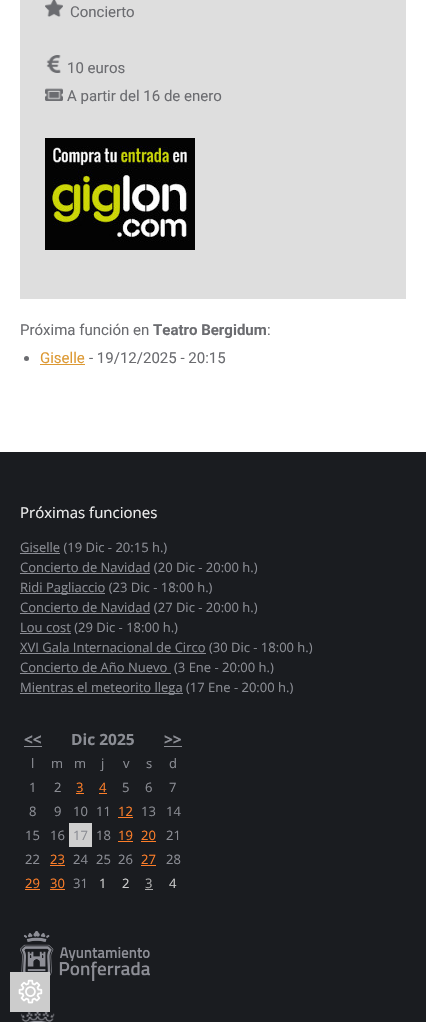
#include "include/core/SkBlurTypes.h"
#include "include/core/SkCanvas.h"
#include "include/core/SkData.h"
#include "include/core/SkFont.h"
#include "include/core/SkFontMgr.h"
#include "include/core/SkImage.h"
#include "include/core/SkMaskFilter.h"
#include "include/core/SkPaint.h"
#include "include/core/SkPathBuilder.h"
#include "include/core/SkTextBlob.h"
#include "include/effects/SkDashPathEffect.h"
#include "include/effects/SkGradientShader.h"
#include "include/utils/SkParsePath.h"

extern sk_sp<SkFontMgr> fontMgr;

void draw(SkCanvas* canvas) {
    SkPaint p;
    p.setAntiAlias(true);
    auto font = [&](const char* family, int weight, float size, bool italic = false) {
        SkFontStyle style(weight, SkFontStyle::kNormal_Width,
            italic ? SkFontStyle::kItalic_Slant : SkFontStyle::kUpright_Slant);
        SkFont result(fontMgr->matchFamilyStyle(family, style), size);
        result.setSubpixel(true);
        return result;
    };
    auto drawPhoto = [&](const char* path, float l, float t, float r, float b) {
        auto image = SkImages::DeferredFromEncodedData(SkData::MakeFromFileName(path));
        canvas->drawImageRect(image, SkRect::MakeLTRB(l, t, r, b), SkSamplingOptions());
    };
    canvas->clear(0xFFFFFFFF);
    p.setColor(0xFFDEDEDE);
    canvas->drawRect(SkRect::MakeLTRB(20, 0, 406, 299), p);
    drawPhoto("media/1.png", 45, 0, 63, 17);
    auto font1 = font("Roboto", 400, 15);
    p.setColor(0xFF6B6C70);
    canvas->drawString("Concierto", 70, 17, font1, p);
    drawPhoto("media/2.png", 46, 55, 61, 73);
    canvas->drawString("10 euros", 67, 73, font1, p);
    drawPhoto("media/3.png", 45, 88, 63, 101);
    canvas->drawString("A partir del 16 de enero", 67, 101, font1, p);
    drawPhoto("media/4.png", 45, 138, 195, 250);
    canvas->drawString("Próxima función en", 20, 335, font1, p);
    auto font2 = font("Roboto", 700, 15);
    canvas->drawString("Teatro Bergidum", 153, 335, font2, p);
    canvas->drawString(":", 267, 335, font1, p);
    canvas->drawCircle(26.5f, 358.5f, 2.5f, p);
    p.setColor(0xFFDD9933);
    canvas->drawString("Giselle", 40, 363, font1, p);
    canvas->drawRect(SkRect::MakeLTRB(40, 364, 85, 365), p);
    p.setColor(0xFF6B6C70);
    canvas->drawString("- 19/12/2025 - 20:15", 89, 363, font1, p);
    p.setColor(0xFF1A1C20);
    canvas->drawRect(SkRect::MakeLTRB(0, 452, 426, 1022), p);
    auto font3 = font("Open Sans", 400, 15);
    p.setColor(0xFFEEEEEE);
    canvas->drawString("Próximas funciones", 20, 518, font3, p);
    p.setColor(0xFF8B8D94);
    canvas->drawRect(SkRect::MakeLTRB(20, 553, 60, 554), p);
    auto font4 = font("Open Sans", 400, 13);
    canvas->drawString("Giselle (19 Dic - 20:15 h.)", 20, 552, font4, p);
    canvas->drawRect(SkRect::MakeLTRB(20, 573, 150, 574), p);
    canvas->drawString("Concierto de Navidad (20 Dic - 20:00 h.)", 20, 572, font4, p);
    canvas->drawRect(SkRect::MakeLTRB(20, 593, 105, 594), p);
    canvas->drawString("Ridi Pagliaccio (23 Dic - 18:00 h.)", 20, 592, font4, p);
    canvas->drawRect(SkRect::MakeLTRB(20, 613, 150, 614), p);
    canvas->drawString("Concierto de Navidad (27 Dic - 20:00 h.)", 20, 612, font4, p);
    canvas->drawRect(SkRect::MakeLTRB(20, 633, 71, 634), p);
    canvas->drawString("Lou cost (29 Dic - 18:00 h.)", 20, 632, font4, p);
    canvas->drawRect(SkRect::MakeLTRB(20, 653, 206, 654), p);
    canvas->drawString("XVI Gala Internacional de Circo (30 Dic - 18:00 h.)", 20, 652, font4, p);
    canvas->drawString("Concierto de Año Nuevo", 20, 672, font4, p);
    canvas->drawRect(SkRect::MakeLTRB(20, 673, 171, 674), p);
    canvas->drawString("(3 Ene - 20:00 h.)", 174, 672, font4, p);
    canvas->drawRect(SkRect::MakeLTRB(20, 693, 183, 694), p);
    canvas->drawString("Mientras el meteorito llega (17 Ene - 20:00 h.)", 20, 692, font4, p);
    auto font5 = font("Open Sans", 700, 15.5f);
    canvas->drawString("<<", 24, 745, font5, p);
    canvas->drawRect(SkRect::MakeLTRB(24, 746, 42, 747), p);
    canvas->drawString("Dic 2025", 71, 745, font5, p);
    canvas->drawString(">>", 164, 745, font5, p);
    canvas->drawRect(SkRect::MakeLTRB(164, 746, 182, 747), p);
    {
        const struct { const char* s; float x, y; } items[] = {
            {"l", 31, 768},
            {"m", 51, 768},
            {"m", 74, 768},
            {"j", 101, 768},
            {"v", 123, 768},
            {"s", 146, 768},
            {"d", 169, 768},
            {"1", 29, 792},
            {"2", 54, 792},
        };
        for (auto [s, x, y] : items) {
            canvas->drawString(s, x, y, font4, p);
        }
    }
    p.setColor(0xFFFD7E29);
    canvas->drawString("3", 76, 792, font4, p);
    canvas->drawRect(SkRect::MakeLTRB(76, 793, 84, 794), p);
    canvas->drawString("4", 99, 792, font4, p);
    canvas->drawRect(SkRect::MakeLTRB(99, 793, 107, 794), p);
    p.setColor(0xFF8B8D94);
    {
        const struct { const char* s; float x, y; } items[] = {
            {"5", 122, 792},
            {"6", 145, 792},
            {"7", 169, 792},
            {"8", 29, 816},
            {"9", 54, 816},
            {"10", 73, 816},
            {"11", 96, 816},
        };
        for (auto [s, x, y] : items) {
            canvas->drawString(s, x, y, font4, p);
        }
    }
    p.setColor(0xFFFD7E29);
    canvas->drawString("12", 118, 816, font4, p);
    canvas->drawRect(SkRect::MakeLTRB(118, 817, 133, 818), p);
    p.setColor(0xFF8B8D94);
    {
        const struct { const char* s; float x, y; } items[] = {
            {"13", 141, 816},
            {"14", 166, 816},
            {"15", 25, 840},
            {"16", 50, 840},
        };
        for (auto [s, x, y] : items) {
            canvas->drawString(s, x, y, font4, p);
        }
    }
    p.setColor(0xFFCFCFCF);
    canvas->drawRect(SkRect::MakeLTRB(69, 823, 92, 847), p);
    p.setColor(0xFF8B8D94);
    canvas->drawString("17", 73, 840, font4, p);
    canvas->drawString("18", 96, 840, font4, p);
    p.setColor(0xFFFD7E29);
    canvas->drawString("19", 118, 840, font4, p);
    canvas->drawRect(SkRect::MakeLTRB(118, 841, 133, 842), p);
    canvas->drawString("20", 141, 840, font4, p);
    canvas->drawRect(SkRect::MakeLTRB(141, 841, 156, 842), p);
    p.setColor(0xFF8B8D94);
    canvas->drawString("21", 166, 840, font4, p);
    canvas->drawString("22", 25, 864, font4, p);
    p.setColor(0xFFFD7E29);
    canvas->drawString("23", 50, 864, font4, p);
    canvas->drawRect(SkRect::MakeLTRB(50, 865, 65, 866), p);
    p.setColor(0xFF8B8D94);
    {
        const struct { const char* s; float x, y; } items[] = {
            {"24", 73, 864},
            {"25", 96, 864},
            {"26", 118, 864},
        };
        for (auto [s, x, y] : items) {
            canvas->drawString(s, x, y, font4, p);
        }
    }
    p.setColor(0xFFFD7E29);
    canvas->drawString("27", 141, 864, font4, p);
    canvas->drawRect(SkRect::MakeLTRB(141, 865, 156, 866), p);
    p.setColor(0xFF8B8D94);
    canvas->drawString("28", 166, 864, font4, p);
    p.setColor(0xFFFD7E29);
    canvas->drawString("29", 25, 888, font4, p);
    canvas->drawRect(SkRect::MakeLTRB(25, 889, 40, 890), p);
    canvas->drawString("30", 50, 888, font4, p);
    canvas->drawRect(SkRect::MakeLTRB(50, 889, 65, 890), p);
    p.setColor(0xFF8B8D94);
    canvas->drawString("31", 73, 888, font4, p);
    p.setColor(0xFFCCCCCC);
    canvas->drawString("1", 99, 888, font4, p);
    canvas->drawString("2", 122, 888, font4, p);
    p.setColor(0xFFAAAAAA);
    canvas->drawString("3", 145, 888, font4, p);
    canvas->drawRect(SkRect::MakeLTRB(145, 889, 153, 890), p);
    p.setColor(0xFFCCCCCC);
    canvas->drawString("4", 169, 888, font4, p);
    drawPhoto("media/5.png", 20, 931, 150, 981);
    drawPhoto("media/6.png", 20, 1012, 55, 1022);
    canvas->drawRect(SkRect::MakeLTRB(10, 972, 50, 1012), p);
    drawPhoto("media/7.png", 18, 979, 43, 1004);
}
